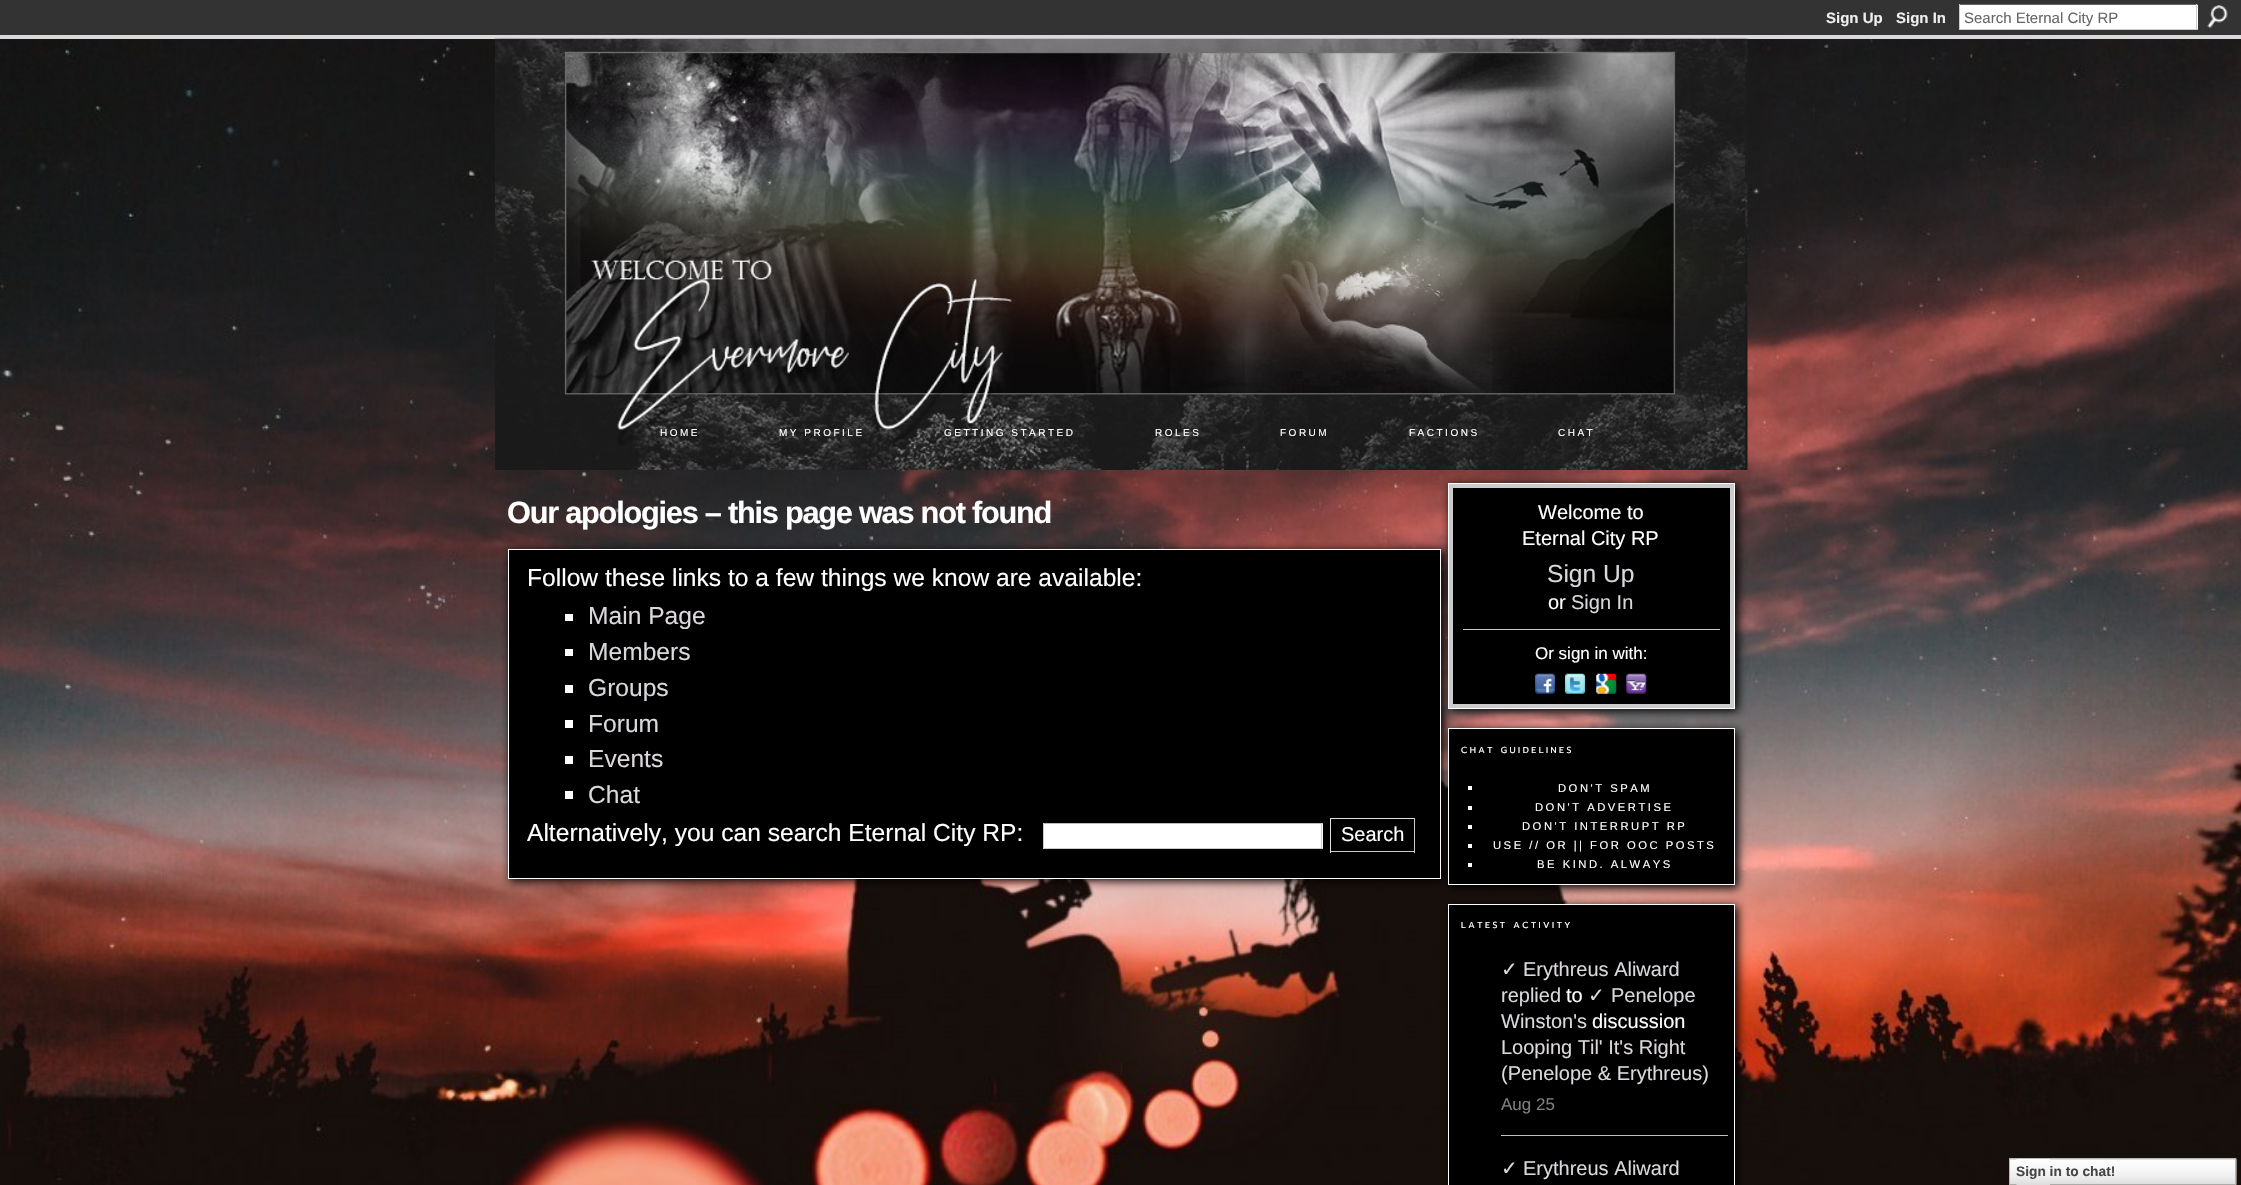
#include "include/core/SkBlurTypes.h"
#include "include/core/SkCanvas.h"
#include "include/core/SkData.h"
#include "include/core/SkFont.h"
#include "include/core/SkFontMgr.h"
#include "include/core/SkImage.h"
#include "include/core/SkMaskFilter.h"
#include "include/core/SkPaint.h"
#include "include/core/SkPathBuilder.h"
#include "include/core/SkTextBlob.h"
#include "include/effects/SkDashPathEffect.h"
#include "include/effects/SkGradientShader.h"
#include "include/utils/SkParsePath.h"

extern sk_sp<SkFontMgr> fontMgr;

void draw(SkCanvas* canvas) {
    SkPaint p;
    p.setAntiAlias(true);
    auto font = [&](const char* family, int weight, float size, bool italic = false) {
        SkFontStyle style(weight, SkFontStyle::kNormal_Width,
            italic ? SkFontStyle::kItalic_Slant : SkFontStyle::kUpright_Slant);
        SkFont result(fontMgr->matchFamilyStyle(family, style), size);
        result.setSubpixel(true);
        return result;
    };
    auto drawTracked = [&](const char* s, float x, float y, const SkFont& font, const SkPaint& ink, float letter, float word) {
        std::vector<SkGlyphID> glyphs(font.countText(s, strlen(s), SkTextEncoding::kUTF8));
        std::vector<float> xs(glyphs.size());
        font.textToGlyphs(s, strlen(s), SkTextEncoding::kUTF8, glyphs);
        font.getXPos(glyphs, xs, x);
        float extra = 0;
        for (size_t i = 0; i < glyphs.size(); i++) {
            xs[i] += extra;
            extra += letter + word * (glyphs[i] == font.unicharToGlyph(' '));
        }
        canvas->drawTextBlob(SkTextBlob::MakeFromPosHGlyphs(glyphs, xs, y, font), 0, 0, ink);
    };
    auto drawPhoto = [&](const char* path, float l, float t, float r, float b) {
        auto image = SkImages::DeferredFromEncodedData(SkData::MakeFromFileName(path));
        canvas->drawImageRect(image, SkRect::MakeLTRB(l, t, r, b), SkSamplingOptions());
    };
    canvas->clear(0xFFFFFFFF);
    drawPhoto("media/1.png", 0, 39, 2241, 1185);
    p.setColor(0xFF333333);
    canvas->drawRect(SkRect::MakeLTRB(0, 0, 2241, 35), p);
    auto font1 = font("Liberation Sans", 700, 15);
    p.setColor(0xFFEEEEEE);
    canvas->drawString("Sign Up", 1826, 23, font1, p);
    canvas->drawString("Sign In", 1896, 23, font1, p);
    {
        const struct { float l, t, r, b; SkColor color; } items[] = {
            {1960, 5, 2198, 29, 0xFFFFFFFF},
            {1959, 4, 2198, 5, 0xFF666666},
            {2196, 4, 2197, 30, 0xFFCCCCCC},
            {1959, 29, 2198, 30, 0xFFCCCCCC},
            {1959, 4, 1960, 30, 0xFFCCCCCC},
        };
        for (auto [l, t, r, b, color] : items) {
            p.setColor(color);
            canvas->drawRect(SkRect::MakeLTRB(l, t, r, b), p);
        }
    }
    auto font2 = font("Liberation Sans", 400, 15);
    p.setColor(0xFF666666);
    canvas->drawString("Search Eternal City RP", 1964, 23, font2, p);
    drawPhoto("media/2.png", 2207, 5, 2228, 28);
    p.setColor(0xFFDBD7DB);
    canvas->drawRect(SkRect::MakeLTRB(0, 35, 2241, 39), p);
    drawPhoto("media/3.png", 495, 38, 1748, 470);
    auto font3 = font("Liberation Sans", 400, 10);
    p.setColor(0xFFFFFFFF);
    {
        const struct { const char* s; float x, y; } items[] = {
            {"HOME", 660, 436},
            {"MY PROFILE", 779, 436},
            {"GETTING STARTED", 944, 436},
            {"ROLES", 1155, 436},
            {"FORUM", 1280, 436},
            {"FACTIONS", 1409, 436},
            {"CHAT", 1558, 436},
        };
        for (auto [s, x, y] : items) {
            drawTracked(s, x, y, font3, p, 2.5f, 0);
        }
    }
    auto font4 = font("Liberation Sans", 700, 30.75f);
    drawTracked("Our apologies – this page was not found", 507, 523, font4, p, -1.25f, 0);
    p.setColor(0xFF000000);
    p.setMaskFilter(SkMaskFilter::MakeBlur(kNormal_SkBlurStyle, 4.5f));
    canvas->drawRect(SkRect::MakeLTRB(510, 551, 1444, 881), p);
    p.setMaskFilter(nullptr);
    p.setStyle(SkPaint::kStroke_Style);
    p.setStrokeWidth(1);
    p.setColor(0xFFFFFFFF);
    canvas->drawRect(SkRect::MakeLTRB(508.5f, 549.5f, 1440.5f, 878.5f), p);
    p.setStyle(SkPaint::kFill_Style);
    p.setColor(0xFF000000);
    canvas->drawRect(SkRect::MakeLTRB(509, 550, 1440, 878), p);
    auto font5 = font("Liberation Sans", 400, 24.6f);
    p.setColor(0xFFFFFFFF);
    canvas->drawString("Follow these links to a few things we know are available:", 527, 586, font5, p);
    canvas->drawRect(SkRect::MakeLTRB(565, 614, 573, 621), p);
    p.setColor(0xFFDBD7DB);
    canvas->drawString("Main Page", 588, 624, font5, p);
    p.setColor(0xFFFFFFFF);
    canvas->drawRect(SkRect::MakeLTRB(565, 649, 573, 656), p);
    p.setColor(0xFFDBD7DB);
    canvas->drawString("Members", 588, 660, font5, p);
    p.setColor(0xFFFFFFFF);
    canvas->drawRect(SkRect::MakeLTRB(565, 685, 573, 693), p);
    p.setColor(0xFFDBD7DB);
    canvas->drawString("Groups", 588, 696, font5, p);
    p.setColor(0xFFFFFFFF);
    canvas->drawRect(SkRect::MakeLTRB(565, 720, 573, 728), p);
    p.setColor(0xFFDBD7DB);
    canvas->drawString("Forum", 588, 732, font5, p);
    p.setColor(0xFFFFFFFF);
    canvas->drawRect(SkRect::MakeLTRB(565, 756, 573, 764), p);
    p.setColor(0xFFDBD7DB);
    canvas->drawString("Events", 588, 767, font5, p);
    p.setColor(0xFFFFFFFF);
    canvas->drawRect(SkRect::MakeLTRB(565, 791, 573, 799), p);
    p.setColor(0xFFDBD7DB);
    canvas->drawString("Chat", 588, 803, font5, p);
    p.setColor(0xFFFFFFFF);
    canvas->drawString("Alternatively, you can search Eternal City RP:", 527, 841, font5, p);
    {
        const struct { float l, t, r, b; SkColor color; } items[] = {
            {1044, 824, 1323, 848, 0xFFFFFFFF},
            {1043, 823, 1323, 824, 0xFFBBBBBB},
            {1321, 823, 1322, 849, 0xFFCCCCCC},
            {1043, 848, 1323, 849, 0xFFCCCCCC},
            {1043, 823, 1044, 849, 0xFFCCCCCC},
            {1330, 818, 1415, 819, 0xFFE1E1E1},
            {1414, 818, 1415, 853, 0xFFCCCCCC},
            {1330, 851, 1415, 852, 0xFFCCCCCC},
            {1330, 818, 1331, 853, 0xFFE1E1E1},
        };
        for (auto [l, t, r, b, color] : items) {
            p.setColor(color);
            canvas->drawRect(SkRect::MakeLTRB(l, t, r, b), p);
        }
    }
    auto font6 = font("Liberation Sans", 400, 20);
    p.setColor(0xFFFFFFFF);
    canvas->drawString("Search", 1341, 841, font6, p);
    p.setColor(0xFF000000);
    p.setMaskFilter(SkMaskFilter::MakeBlur(kNormal_SkBlurStyle, 4.5f));
    canvas->drawRect(SkRect::MakeLTRB(1450, 485, 1738, 711), p);
    p.setMaskFilter(nullptr);
    p.setStyle(SkPaint::kStroke_Style);
    p.setColor(0xFFFFFFFF);
    canvas->drawRect(SkRect::MakeLTRB(1448.5f, 483.5f, 1734.5f, 708.5f), p);
    p.setStyle(SkPaint::kFill_Style);
    p.setColor(0xFF000000);
    canvas->drawRect(SkRect::MakeLTRB(1451, 486, 1732, 706), p);
    p.setStyle(SkPaint::kStroke_Style);
    p.setStrokeWidth(4);
    p.setColor(0xFFCBCBCB);
    canvas->drawRect(SkRect::MakeLTRB(1451, 486, 1732, 706), p);
    p.setStyle(SkPaint::kFill_Style);
    p.setColor(0xFFFFFFFF);
    canvas->drawString("Welcome to", 1538, 519, font6, p);
    canvas->drawString("Eternal City RP", 1522, 545, font6, p);
    p.setColor(0xFFDBD7DB);
    canvas->drawString("Sign Up", 1547, 582, font5, p);
    p.setColor(0xFFFFFFFF);
    canvas->drawString("or", 1548, 609, font6, p);
    p.setColor(0xFFDBD7DB);
    canvas->drawString("Sign In", 1571, 609, font6, p);
    p.setColor(0xFFCBCBCB);
    canvas->drawRect(SkRect::MakeLTRB(1463, 629, 1720, 630), p);
    auto font7 = font("Liberation Sans", 400, 17);
    p.setColor(0xFFFFFFFF);
    canvas->drawString("Or sign in with:", 1535, 659, font7, p);
    drawPhoto("media/4.png", 1535, 673, 1555, 694);
    drawPhoto("media/5.png", 1565, 673, 1585, 694);
    drawPhoto("media/6.png", 1596, 673, 1617, 694);
    drawPhoto("media/7.png", 1626, 673, 1647, 694);
    p.setColor(0xFF000000);
    p.setMaskFilter(SkMaskFilter::MakeBlur(kNormal_SkBlurStyle, 4.5f));
    canvas->drawRect(SkRect::MakeLTRB(1450, 730, 1738, 888), p);
    p.setMaskFilter(nullptr);
    p.setStyle(SkPaint::kStroke_Style);
    p.setStrokeWidth(1);
    p.setColor(0xFFFFFFFF);
    canvas->drawRect(SkRect::MakeLTRB(1448.5f, 728.5f, 1734.5f, 884.5f), p);
    p.setStyle(SkPaint::kFill_Style);
    p.setColor(0xFF000000);
    canvas->drawRect(SkRect::MakeLTRB(1449, 729, 1734, 884), p);
    auto font8 = font("Prompt", 400, 8.75f);
    p.setColor(0xFFFFFFFF);
    drawTracked("CHAT GUIDELINES", 1461, 753, font8, p, 2.5f, 0);
    canvas->drawRect(SkRect::MakeLTRB(1468, 786, 1472, 790), p);
    auto font9 = font("Liberation Sans", 400, 11.25f);
    drawTracked("DON'T SPAM", 1558, 792, font9, p, 2.5f, 0);
    canvas->drawRect(SkRect::MakeLTRB(1468, 806, 1472, 810), p);
    drawTracked("DON'T ADVERTISE", 1535, 811, font9, p, 2.5f, 0);
    canvas->drawRect(SkRect::MakeLTRB(1468, 825, 1472, 829), p);
    drawTracked("DON'T INTERRUPT RP", 1522, 830, font9, p, 2.5f, 0);
    canvas->drawRect(SkRect::MakeLTRB(1468, 844, 1472, 848), p);
    drawTracked("USE // OR || FOR OOC POSTS", 1493, 849, font9, p, 2.5f, 0);
    canvas->drawRect(SkRect::MakeLTRB(1468, 863, 1472, 867), p);
    drawTracked("BE KIND. ALWAYS", 1537, 868, font9, p, 2.5f, 0);
    p.setColor(0xFF000000);
    p.setMaskFilter(SkMaskFilter::MakeBlur(kNormal_SkBlurStyle, 4.5f));
    canvas->drawRect(SkRect::MakeLTRB(1450, 906, 1738, 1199), p);
    p.setMaskFilter(nullptr);
    p.setStyle(SkPaint::kStroke_Style);
    p.setColor(0xFFFFFFFF);
    canvas->drawRect(SkRect::MakeLTRB(1448.5f, 904.5f, 1734.5f, 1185.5f), p);
    p.setStyle(SkPaint::kFill_Style);
    p.setColor(0xFF000000);
    canvas->drawRect(SkRect::MakeLTRB(1449, 905, 1734, 1185), p);
    p.setColor(0xFFFFFFFF);
    drawTracked("LATEST ACTIVITY", 1461, 928, font8, p, 2.5f, 0);
    p.setColor(0xFFC0C0C0);
    canvas->drawRect(SkRect::MakeLTRB(1501, 1135, 1728, 1136), p);
    auto font10 = font("DejaVu Sans", 400, 20);
    p.setColor(0xFFDBD7DB);
    canvas->drawString("✓", 1501, 976, font10, p);
    canvas->drawString("Erythreus Aliward", 1523, 976, font6, p);
    canvas->drawString("replied", 1501, 1002, font6, p);
    p.setColor(0xFFFFFFFF);
    canvas->drawString("to", 1566, 1002, font6, p);
    p.setColor(0xFFDBD7DB);
    canvas->drawString("✓", 1588, 1002, font10, p);
    canvas->drawString("Penelope", 1611, 1002, font6, p);
    canvas->drawString("Winston's", 1501, 1028, font6, p);
    p.setColor(0xFFFFFFFF);
    canvas->drawString("discussion", 1592, 1028, font6, p);
    p.setColor(0xFFDBD7DB);
    canvas->drawString("Looping Til' It's Right", 1501, 1054, font6, p);
    canvas->drawString("(Penelope & Erythreus)", 1501, 1080, font6, p);
    p.setColor(0xFF7F7F7F);
    canvas->drawString("Aug 25", 1501, 1110, font7, p);
    p.setColor(0xFFDBD7DB);
    canvas->drawString("✓", 1501, 1175, font10, p);
    canvas->drawString("Erythreus Aliward", 1523, 1175, font6, p);
    drawPhoto("media/8.png", 2010, 1158, 2237, 1185);
    p.setStyle(SkPaint::kStroke_Style);
    p.setColor(0xFFB7B7B7);
    canvas->drawRect(SkRect::MakeLTRB(2009.5f, 1158.5f, 2235.5f, 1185.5f), p);
    drawPhoto("media/9.png", 2016, 1158, 2050, 1185);
    auto font11 = font("Liberation Sans", 700, 13.75f);
    p.setStyle(SkPaint::kFill_Style);
    p.setColor(0xFF454545);
    canvas->drawString("Sign in to chat!", 2016, 1176, font11, p);
}
